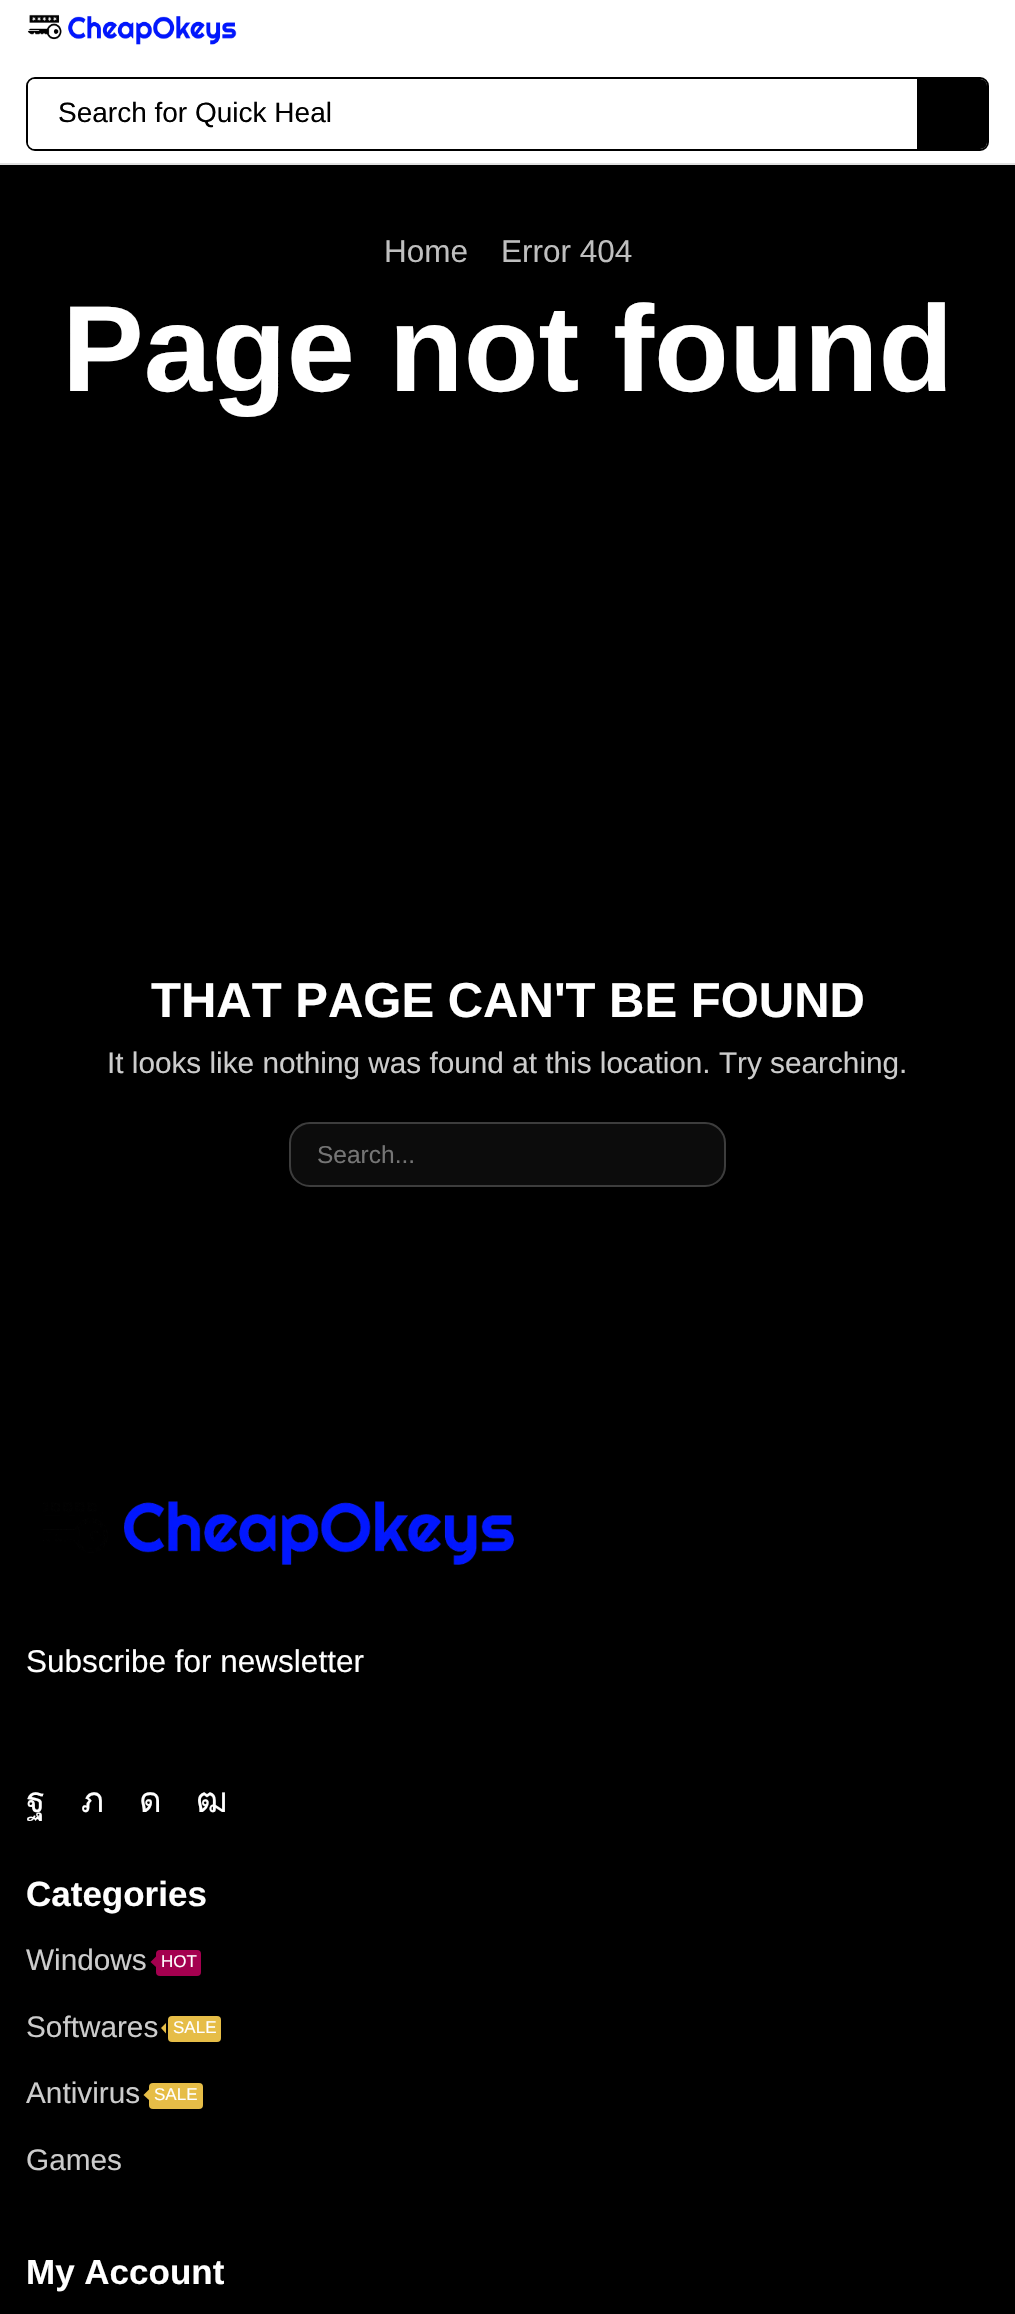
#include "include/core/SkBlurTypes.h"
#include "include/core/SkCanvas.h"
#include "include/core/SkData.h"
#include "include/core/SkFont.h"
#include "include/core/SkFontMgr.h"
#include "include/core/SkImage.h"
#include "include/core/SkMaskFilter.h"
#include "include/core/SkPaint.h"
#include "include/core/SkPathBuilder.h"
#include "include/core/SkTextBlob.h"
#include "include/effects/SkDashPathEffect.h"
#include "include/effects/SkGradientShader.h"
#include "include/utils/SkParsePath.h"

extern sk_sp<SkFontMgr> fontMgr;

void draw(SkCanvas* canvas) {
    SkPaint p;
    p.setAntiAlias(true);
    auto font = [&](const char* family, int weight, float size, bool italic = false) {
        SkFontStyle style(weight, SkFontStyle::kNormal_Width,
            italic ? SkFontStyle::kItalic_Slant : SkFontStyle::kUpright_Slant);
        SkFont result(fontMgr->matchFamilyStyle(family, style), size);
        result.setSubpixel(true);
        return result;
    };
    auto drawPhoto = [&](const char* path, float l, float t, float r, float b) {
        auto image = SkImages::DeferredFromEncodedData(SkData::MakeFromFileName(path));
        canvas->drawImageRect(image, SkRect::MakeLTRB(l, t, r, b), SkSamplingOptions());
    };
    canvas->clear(0xFF000000);
    p.setColor(0xFFFFFFFF);
    canvas->drawRect(SkRect::MakeLTRB(0, 0, 1015, 163), p);
    p.setColor(0xFFE1E1E1);
    canvas->drawRect(SkRect::MakeLTRB(0, 163, 1015, 165), p);
    drawPhoto("media/1.png", 27, 14, 237, 45);
    p.setStyle(SkPaint::kStroke_Style);
    p.setStrokeWidth(2);
    p.setColor(0xFF000000);
    canvas->drawRoundRect(SkRect::MakeLTRB(27, 78, 988, 150), 8, 8, p);
    p.setStyle(SkPaint::kFill_Style);
    p.setColor(0xFFFFFFFF);
    canvas->drawPath(SkPathBuilder().moveTo(35, 79).lineTo(917, 79).lineTo(917, 149).lineTo(35, 149).cubicTo(31, 149, 28, 146, 28, 142).lineTo(28, 86).cubicTo(28, 82, 31, 79, 35, 79).close().detach(), p);
    auto font1 = font("Liberation Sans", 400, 28);
    p.setColor(0xFF000000);
    canvas->drawString("Search for", 58, 122, font1, p);
    canvas->drawString("Quick Heal", 195, 122, font1, p);
    canvas->drawPath(SkPathBuilder().moveTo(917, 79).lineTo(980, 79).cubicTo(984, 79, 987, 82, 987, 86).lineTo(987, 142).cubicTo(987, 146, 984, 149, 980, 149).lineTo(917, 149).close().detach(), p);
    auto font2 = font("Liberation Sans", 400, 31.5f);
    p.setColor(0xFFBFBFBF);
    canvas->drawString("Home", 384, 262, font2, p);
    canvas->drawString("Error 404", 501, 262, font2, p);
    auto font3 = font("Liberation Sans", 700, 122.5f);
    p.setColor(0xFFFFFFFF);
    canvas->drawString("Page not found", 62, 391, font3, p);
    auto font4 = font("Liberation Sans", 700, 49);
    canvas->drawString("THAT PAGE CAN'T BE FOUND", 151, 1017, font4, p);
    auto font5 = font("Liberation Sans", 400, 29.75f);
    p.setColor(0xFFCCCCCC);
    canvas->drawString("It looks like nothing was found at this location. Try searching.", 107, 1073, font5, p);
    p.setColor(0xFF0C0C0C);
    canvas->drawRoundRect(SkRect::MakeLTRB(290, 1123, 725, 1186), 20, 20, p);
    p.setStyle(SkPaint::kStroke_Style);
    p.setColor(0xFF3D3D3D);
    canvas->drawRoundRect(SkRect::MakeLTRB(290, 1123, 725, 1186), 20, 20, p);
    auto font6 = font("Liberation Sans", 400, 24.5f);
    p.setStyle(SkPaint::kFill_Style);
    p.setColor(0xFF757575);
    canvas->drawString("Search...", 317, 1163, font6, p);
    drawPhoto("media/2.png", 43, 1501, 514, 1565);
    p.setColor(0xFFFFFFFF);
    canvas->drawString("Subscribe for newsletter", 26, 1672, font2, p);
    auto font7 = font("Loma", 400, 35);
    {
        const struct { const char* s; float x, y; } items[] = {
            {"ฐ", 26, 1812},
            {"ภ", 81, 1812},
            {"ด", 139, 1812},
            {"ฒ", 196, 1812},
        };
        for (auto [s, x, y] : items) {
            canvas->drawString(s, x, y, font7, p);
        }
    }
    auto font8 = font("Liberation Sans", 700, 35);
    canvas->drawString("Categories", 26, 1906, font8, p);
    p.setColor(0xFFCCCCCC);
    canvas->drawString("Windows", 26, 1970, font5, p);
    p.setColor(0xFFA4004F);
    canvas->drawRoundRect(SkRect::MakeLTRB(156, 1950, 201, 1976), 4, 4, p);
    canvas->drawPath(SkPathBuilder().moveTo(156, 1956.5f).lineTo(156, 1967).lineTo(150.5f, 1962).close().detach(), p);
    auto font9 = font("Liberation Sans", 400, 17);
    p.setColor(0xFFFFFFFF);
    canvas->drawString("HOT", 161, 1967, font9, p);
    p.setColor(0xFFCCCCCC);
    canvas->drawString("Softwares", 26, 2037, font5, p);
    p.setColor(0xFFE6BD47);
    canvas->drawRoundRect(SkRect::MakeLTRB(168, 2016, 221, 2042), 4, 4, p);
    canvas->drawPath(SkPathBuilder().moveTo(166, 2023).lineTo(166, 2033.5f).lineTo(161, 2028).close().detach(), p);
    p.setColor(0xFFFFFFFF);
    canvas->drawString("SALE", 173, 2033, font9, p);
    p.setColor(0xFFCCCCCC);
    canvas->drawString("Antivirus", 26, 2103, font5, p);
    p.setColor(0xFFE6BD47);
    canvas->drawRoundRect(SkRect::MakeLTRB(149, 2083, 203, 2109), 4, 4, p);
    canvas->drawPath(SkPathBuilder().moveTo(149, 2089.5f).lineTo(149, 2100).lineTo(143.5f, 2095).close().detach(), p);
    p.setColor(0xFFFFFFFF);
    canvas->drawString("SALE", 154, 2100, font9, p);
    p.setColor(0xFFCCCCCC);
    canvas->drawString("Games", 26, 2170, font5, p);
    p.setColor(0xFFFFFFFF);
    canvas->drawString("My Account", 26, 2284, font8, p);
}
